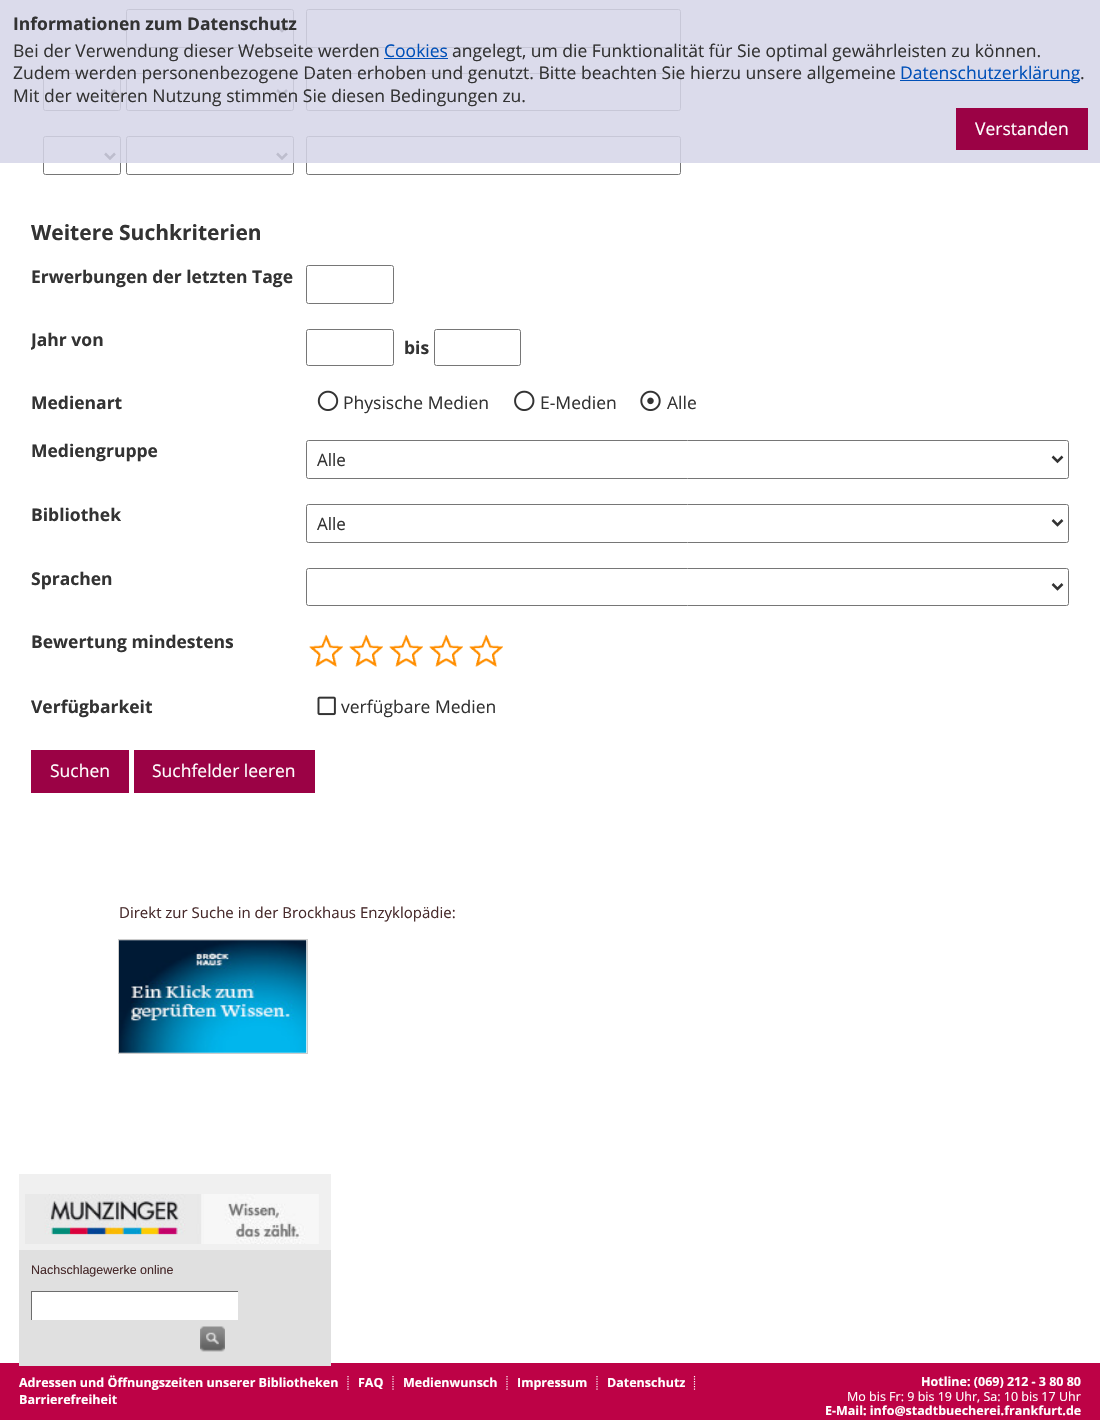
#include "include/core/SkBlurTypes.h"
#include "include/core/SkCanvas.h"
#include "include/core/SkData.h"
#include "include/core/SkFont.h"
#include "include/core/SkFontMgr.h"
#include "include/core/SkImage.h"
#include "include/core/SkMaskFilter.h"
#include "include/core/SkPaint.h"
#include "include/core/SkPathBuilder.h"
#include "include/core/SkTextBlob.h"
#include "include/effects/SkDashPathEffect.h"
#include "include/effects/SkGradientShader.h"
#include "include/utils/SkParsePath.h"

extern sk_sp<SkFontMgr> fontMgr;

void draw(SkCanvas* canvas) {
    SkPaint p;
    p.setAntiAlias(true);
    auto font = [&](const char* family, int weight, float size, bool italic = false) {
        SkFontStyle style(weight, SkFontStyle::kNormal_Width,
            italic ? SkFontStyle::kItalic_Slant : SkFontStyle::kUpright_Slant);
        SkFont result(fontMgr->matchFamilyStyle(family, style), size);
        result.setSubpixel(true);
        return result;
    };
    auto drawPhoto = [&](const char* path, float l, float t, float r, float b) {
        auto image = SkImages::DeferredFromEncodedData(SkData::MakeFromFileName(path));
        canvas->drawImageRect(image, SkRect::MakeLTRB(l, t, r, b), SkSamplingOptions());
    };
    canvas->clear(0xFFBD0246);
    p.setColor(0xFFFFFFFF);
    canvas->drawRect(SkRect::MakeLTRB(0, 0, 1100, 1363), p);
    p.setStyle(SkPaint::kStroke_Style);
    p.setStrokeWidth(1);
    p.setColor(0xFF767676);
    canvas->drawRoundRect(SkRect::MakeLTRB(126.5f, 9.5f, 293.5f, 47.5f), 2, 2, p);
    p.setStrokeWidth(2.5f);
    p.setColor(0xFF333333);
    canvas->drawPath(SkPathBuilder().moveTo(277, 26).lineTo(282, 31).lineTo(287, 26).detach(), p);
    p.setStrokeWidth(1);
    p.setColor(0xFF767676);
    canvas->drawRoundRect(SkRect::MakeLTRB(306.5f, 9.5f, 680.5f, 47.5f), 2, 2, p);
    canvas->drawRoundRect(SkRect::MakeLTRB(43.5f, 73.5f, 120.5f, 110.5f), 2, 2, p);
    p.setStrokeWidth(2.5f);
    p.setColor(0xFF333333);
    canvas->drawPath(SkPathBuilder().moveTo(105, 90).lineTo(110, 95).lineTo(115, 90).detach(), p);
    p.setStrokeWidth(1);
    p.setColor(0xFF767676);
    canvas->drawRoundRect(SkRect::MakeLTRB(126.5f, 73.5f, 293.5f, 110.5f), 2, 2, p);
    p.setStrokeWidth(2.5f);
    p.setColor(0xFF333333);
    canvas->drawPath(SkPathBuilder().moveTo(277, 90).lineTo(282, 95).lineTo(287, 90).detach(), p);
    p.setStrokeWidth(1);
    p.setColor(0xFF767676);
    canvas->drawRoundRect(SkRect::MakeLTRB(306.5f, 73.5f, 680.5f, 110.5f), 2, 2, p);
    canvas->drawRoundRect(SkRect::MakeLTRB(43.5f, 136.5f, 120.5f, 174.5f), 2, 2, p);
    p.setStrokeWidth(2.5f);
    p.setColor(0xFF333333);
    canvas->drawPath(SkPathBuilder().moveTo(105, 153.5f).lineTo(110, 158.5f).lineTo(115, 153.5f).detach(), p);
    p.setStrokeWidth(1);
    p.setColor(0xFF767676);
    canvas->drawRoundRect(SkRect::MakeLTRB(126.5f, 136.5f, 293.5f, 174.5f), 2, 2, p);
    p.setStrokeWidth(2.5f);
    p.setColor(0xFF333333);
    canvas->drawPath(SkPathBuilder().moveTo(277, 153.5f).lineTo(282, 158.5f).lineTo(287, 153.5f).detach(), p);
    p.setStrokeWidth(1);
    p.setColor(0xFF767676);
    canvas->drawRoundRect(SkRect::MakeLTRB(306.5f, 136.5f, 680.5f, 174.5f), 2, 2, p);
    p.setStyle(SkPaint::kFill_Style);
    p.setColor(0xD9D5D5E7);
    canvas->drawRect(SkRect::MakeLTRB(0, 0, 1100, 163), p);
    auto font1 = font("Open Sans", 700, 17.5f);
    p.setColor(0xFF333333);
    canvas->drawString("Informationen zum Datenschutz", 13, 30, font1, p);
    auto font2 = font("Open Sans", 400, 17.5f);
    canvas->drawString("Bei der Verwendung dieser Webseite werden", 13, 57, font2, p);
    p.setColor(0xFF0050B8);
    canvas->drawString("Cookies", 384, 57, font2, p);
    canvas->drawRect(SkRect::MakeLTRB(384, 58, 448, 59), p);
    p.setColor(0xFF333333);
    canvas->drawString("angelegt, um die Funktionalität für Sie optimal gewährleisten zu können.", 452, 57, font2, p);
    canvas->drawString("Zudem werden personenbezogene Daten erhoben und genutzt. Bitte beachten Sie hierzu unsere allgemeine", 13, 79, font2, p);
    p.setColor(0xFF0050B8);
    canvas->drawRect(SkRect::MakeLTRB(900, 80, 1080, 81), p);
    canvas->drawString("Datenschutzerklärung", 900, 79, font2, p);
    p.setColor(0xFF333333);
    canvas->drawString(".", 1080, 79, font2, p);
    canvas->drawString("Mit der weiteren Nutzung stimmen Sie diesen Bedingungen zu.", 13, 102, font2, p);
    p.setColor(0xFF9B0245);
    canvas->drawRect(SkRect::MakeLTRB(956, 108, 1088, 150), p);
    p.setColor(0xFFFFFFFF);
    canvas->drawString("Verstanden", 975, 135, font2, p);
    auto font3 = font("Open Sans", 700, 21);
    p.setColor(0xFF333333);
    canvas->drawString("Weitere Suchkriterien", 31, 240, font3, p);
    canvas->drawString("Erwerbungen der letzten Tage", 31, 283, font1, p);
    p.setStyle(SkPaint::kStroke_Style);
    p.setColor(0xFF767676);
    canvas->drawRoundRect(SkRect::MakeLTRB(306.5f, 265.5f, 393.5f, 303.5f), 2, 2, p);
    canvas->save();
    canvas->clipRect(SkRect::MakeLTRB(31, 3, 1069, 738));
    p.setStyle(SkPaint::kFill_Style);
    p.setColor(0xFF333333);
    canvas->drawString("Jahr von", 31, 346, font1, p);
    canvas->restore();
    p.setStyle(SkPaint::kStroke_Style);
    p.setColor(0xFF767676);
    canvas->drawRoundRect(SkRect::MakeLTRB(306.5f, 329.5f, 393.5f, 365.5f), 2, 2, p);
    p.setStyle(SkPaint::kFill_Style);
    p.setColor(0xFF333333);
    canvas->drawString("bis", 404, 354, font1, p);
    p.setStyle(SkPaint::kStroke_Style);
    p.setColor(0xFF767676);
    canvas->drawRoundRect(SkRect::MakeLTRB(434.5f, 329.5f, 520.5f, 365.5f), 2, 2, p);
    p.setStyle(SkPaint::kFill_Style);
    p.setColor(0xFF333333);
    canvas->drawString("Medienart", 31, 409, font1, p);
    drawPhoto("media/1.png", 317, 390, 339, 411);
    canvas->drawString("Physische Medien", 343, 409, font2, p);
    drawPhoto("media/2.png", 514, 390, 535, 411);
    canvas->drawString("E-Medien", 540, 409, font2, p);
    drawPhoto("media/3.png", 640, 390, 661, 411);
    canvas->drawString("Alle", 667, 409, font2, p);
    canvas->drawString("Mediengruppe", 31, 457, font1, p);
    p.setStyle(SkPaint::kStroke_Style);
    p.setColor(0xFF767676);
    canvas->drawRoundRect(SkRect::MakeLTRB(306.5f, 440.5f, 1068.5f, 478.5f), 2, 2, p);
    p.setStrokeWidth(2.5f);
    p.setColor(0xFF333333);
    canvas->drawPath(SkPathBuilder().moveTo(1052.5f, 456.5f).lineTo(1057.5f, 461.5f).lineTo(1062.5f, 456.5f).detach(), p);
    auto font4 = font("Open Sans", 400, 17);
    p.setStyle(SkPaint::kFill_Style);
    canvas->drawString("Alle", 317, 466, font4, p);
    canvas->drawString("Bibliothek", 31, 521, font1, p);
    p.setStyle(SkPaint::kStroke_Style);
    p.setStrokeWidth(1);
    p.setColor(0xFF767676);
    canvas->drawRoundRect(SkRect::MakeLTRB(306.5f, 504.5f, 1068.5f, 542.5f), 2, 2, p);
    p.setStrokeWidth(2.5f);
    p.setColor(0xFF333333);
    canvas->drawPath(SkPathBuilder().moveTo(1052.5f, 520).lineTo(1057.5f, 525).lineTo(1062.5f, 520).detach(), p);
    p.setStyle(SkPaint::kFill_Style);
    canvas->drawString("Alle", 317, 530, font4, p);
    canvas->drawString("Sprachen", 31, 585, font1, p);
    p.setStyle(SkPaint::kStroke_Style);
    p.setStrokeWidth(1);
    p.setColor(0xFF767676);
    canvas->drawRoundRect(SkRect::MakeLTRB(306.5f, 568.5f, 1068.5f, 605.5f), 2, 2, p);
    p.setStrokeWidth(2.5f);
    p.setColor(0xFF333333);
    canvas->drawPath(SkPathBuilder().moveTo(1052.5f, 584).lineTo(1057.5f, 589).lineTo(1062.5f, 584).detach(), p);
    p.setStyle(SkPaint::kFill_Style);
    canvas->drawString("Bewertung mindestens", 31, 648, font1, p);
    drawPhoto("media/4.png", 309, 634, 343, 667);
    drawPhoto("media/5.png", 349, 634, 383, 667);
    drawPhoto("media/6.png", 389, 634, 423, 667);
    drawPhoto("media/7.png", 429, 634, 463, 667);
    drawPhoto("media/8.png", 469, 634, 503, 667);
    canvas->drawString("Verfügbarkeit", 31, 713, font1, p);
    drawPhoto("media/9.png", 317, 696, 336, 716);
    canvas->drawString("verfügbare Medien", 341, 713, font2, p);
    p.setColor(0xFF9B0245);
    canvas->drawRect(SkRect::MakeLTRB(31, 750, 129, 793), p);
    p.setColor(0xFFFFFFFF);
    canvas->drawString("Suchen", 50, 777, font2, p);
    p.setColor(0xFF9B0245);
    canvas->drawRect(SkRect::MakeLTRB(134, 750, 315, 793), p);
    p.setColor(0xFFFFFFFF);
    canvas->drawString("Suchfelder leeren", 152, 777, font2, p);
    auto font5 = font("Open Sans", 400, 15);
    p.setColor(0xFF472A2B);
    canvas->drawString("Direkt zur Suche in der Brockhaus Enzyklopädie:", 119, 918, font5, p);
    drawPhoto("media/10.png", 119, 940, 307, 1053);
    p.setStyle(SkPaint::kStroke_Style);
    p.setStrokeWidth(1);
    p.setColor(0xFFCCCCCC);
    canvas->drawRect(SkRect::MakeLTRB(118.5f, 939.5f, 307.5f, 1053.5f), p);
    p.setStyle(SkPaint::kFill_Style);
    p.setColor(0xFFF0F0F0);
    canvas->drawRect(SkRect::MakeLTRB(19, 1174, 331, 1250), p);
    drawPhoto("media/11.png", 25, 1194, 319, 1244);
    p.setColor(0xFFE0E0E0);
    canvas->drawRect(SkRect::MakeLTRB(19, 1250, 331, 1366), p);
    auto font6 = font("Liberation Sans", 400, 12.5f);
    p.setColor(0xFF472A2B);
    canvas->drawString("Nachschlagewerke online", 31, 1274, font6, p);
    {
        const struct { float l, t, r, b; SkColor color; } items[] = {
            {32, 1292, 238, 1320, 0xFFFFFFFF},
            {31, 1291, 238, 1292, 0xFF6D6D6D},
            {31, 1291, 32, 1320, 0xFF6D6D6D},
        };
        for (auto [l, t, r, b, color] : items) {
            p.setColor(color);
            canvas->drawRect(SkRect::MakeLTRB(l, t, r, b), p);
        }
    }
    drawPhoto("media/12.png", 200, 1326, 225, 1352);
    p.setStyle(SkPaint::kStroke_Style);
    p.setStrokeWidth(1.2f);
    p.setColor(0xFFFFFFFF);
    p.setPathEffect(SkDashPathEffect::Make({{1.25f, 1.25f}}, 0));
    canvas->drawPath(SkPathBuilder().moveTo(348, 1376).lineTo(348, 1390).detach(), p);
    p.setPathEffect(nullptr);
    auto font7 = font("Open Sans", 700, 12.5f);
    p.setStyle(SkPaint::kFill_Style);
    canvas->drawString("Adressen und Öffnungszeiten unserer Bibliotheken", 19, 1387, font7, p);
    p.setStyle(SkPaint::kStroke_Style);
    p.setPathEffect(SkDashPathEffect::Make({{1.25f, 1.25f}}, 0));
    canvas->drawPath(SkPathBuilder().moveTo(393, 1376).lineTo(393, 1390).detach(), p);
    p.setPathEffect(nullptr);
    p.setStyle(SkPaint::kFill_Style);
    canvas->drawString("FAQ", 358, 1387, font7, p);
    p.setStyle(SkPaint::kStroke_Style);
    p.setPathEffect(SkDashPathEffect::Make({{1.25f, 1.25f}}, 0));
    canvas->drawPath(SkPathBuilder().moveTo(507, 1376).lineTo(507, 1390).detach(), p);
    p.setPathEffect(nullptr);
    p.setStyle(SkPaint::kFill_Style);
    canvas->drawString("Medienwunsch", 403, 1387, font7, p);
    p.setStyle(SkPaint::kStroke_Style);
    p.setPathEffect(SkDashPathEffect::Make({{1.25f, 1.25f}}, 0));
    canvas->drawPath(SkPathBuilder().moveTo(597, 1376).lineTo(597, 1390).detach(), p);
    p.setPathEffect(nullptr);
    p.setStyle(SkPaint::kFill_Style);
    canvas->drawString("Impressum", 517, 1387, font7, p);
    p.setStyle(SkPaint::kStroke_Style);
    p.setPathEffect(SkDashPathEffect::Make({{1.25f, 1.25f}}, 0));
    canvas->drawPath(SkPathBuilder().moveTo(694.5f, 1376).lineTo(694.5f, 1390).detach(), p);
    p.setPathEffect(nullptr);
    p.setStyle(SkPaint::kFill_Style);
    {
        const struct { const char* s; float x, y; } items[] = {
            {"Datenschutz", 607, 1387},
            {"Barrierefreiheit", 19, 1404},
            {"Hotline: (069) 212 - 3 80 80", 921, 1386},
        };
        for (auto [s, x, y] : items) {
            canvas->drawString(s, x, y, font7, p);
        }
    }
    auto font8 = font("Open Sans", 400, 12.5f);
    canvas->drawString("Mo bis Fr: 9 bis 19 Uhr, Sa: 10 bis 17 Uhr", 847, 1401, font8, p);
    canvas->drawString("E-Mail: info@stadtbuecherei.frankfurt.de", 825, 1415, font7, p);
}
